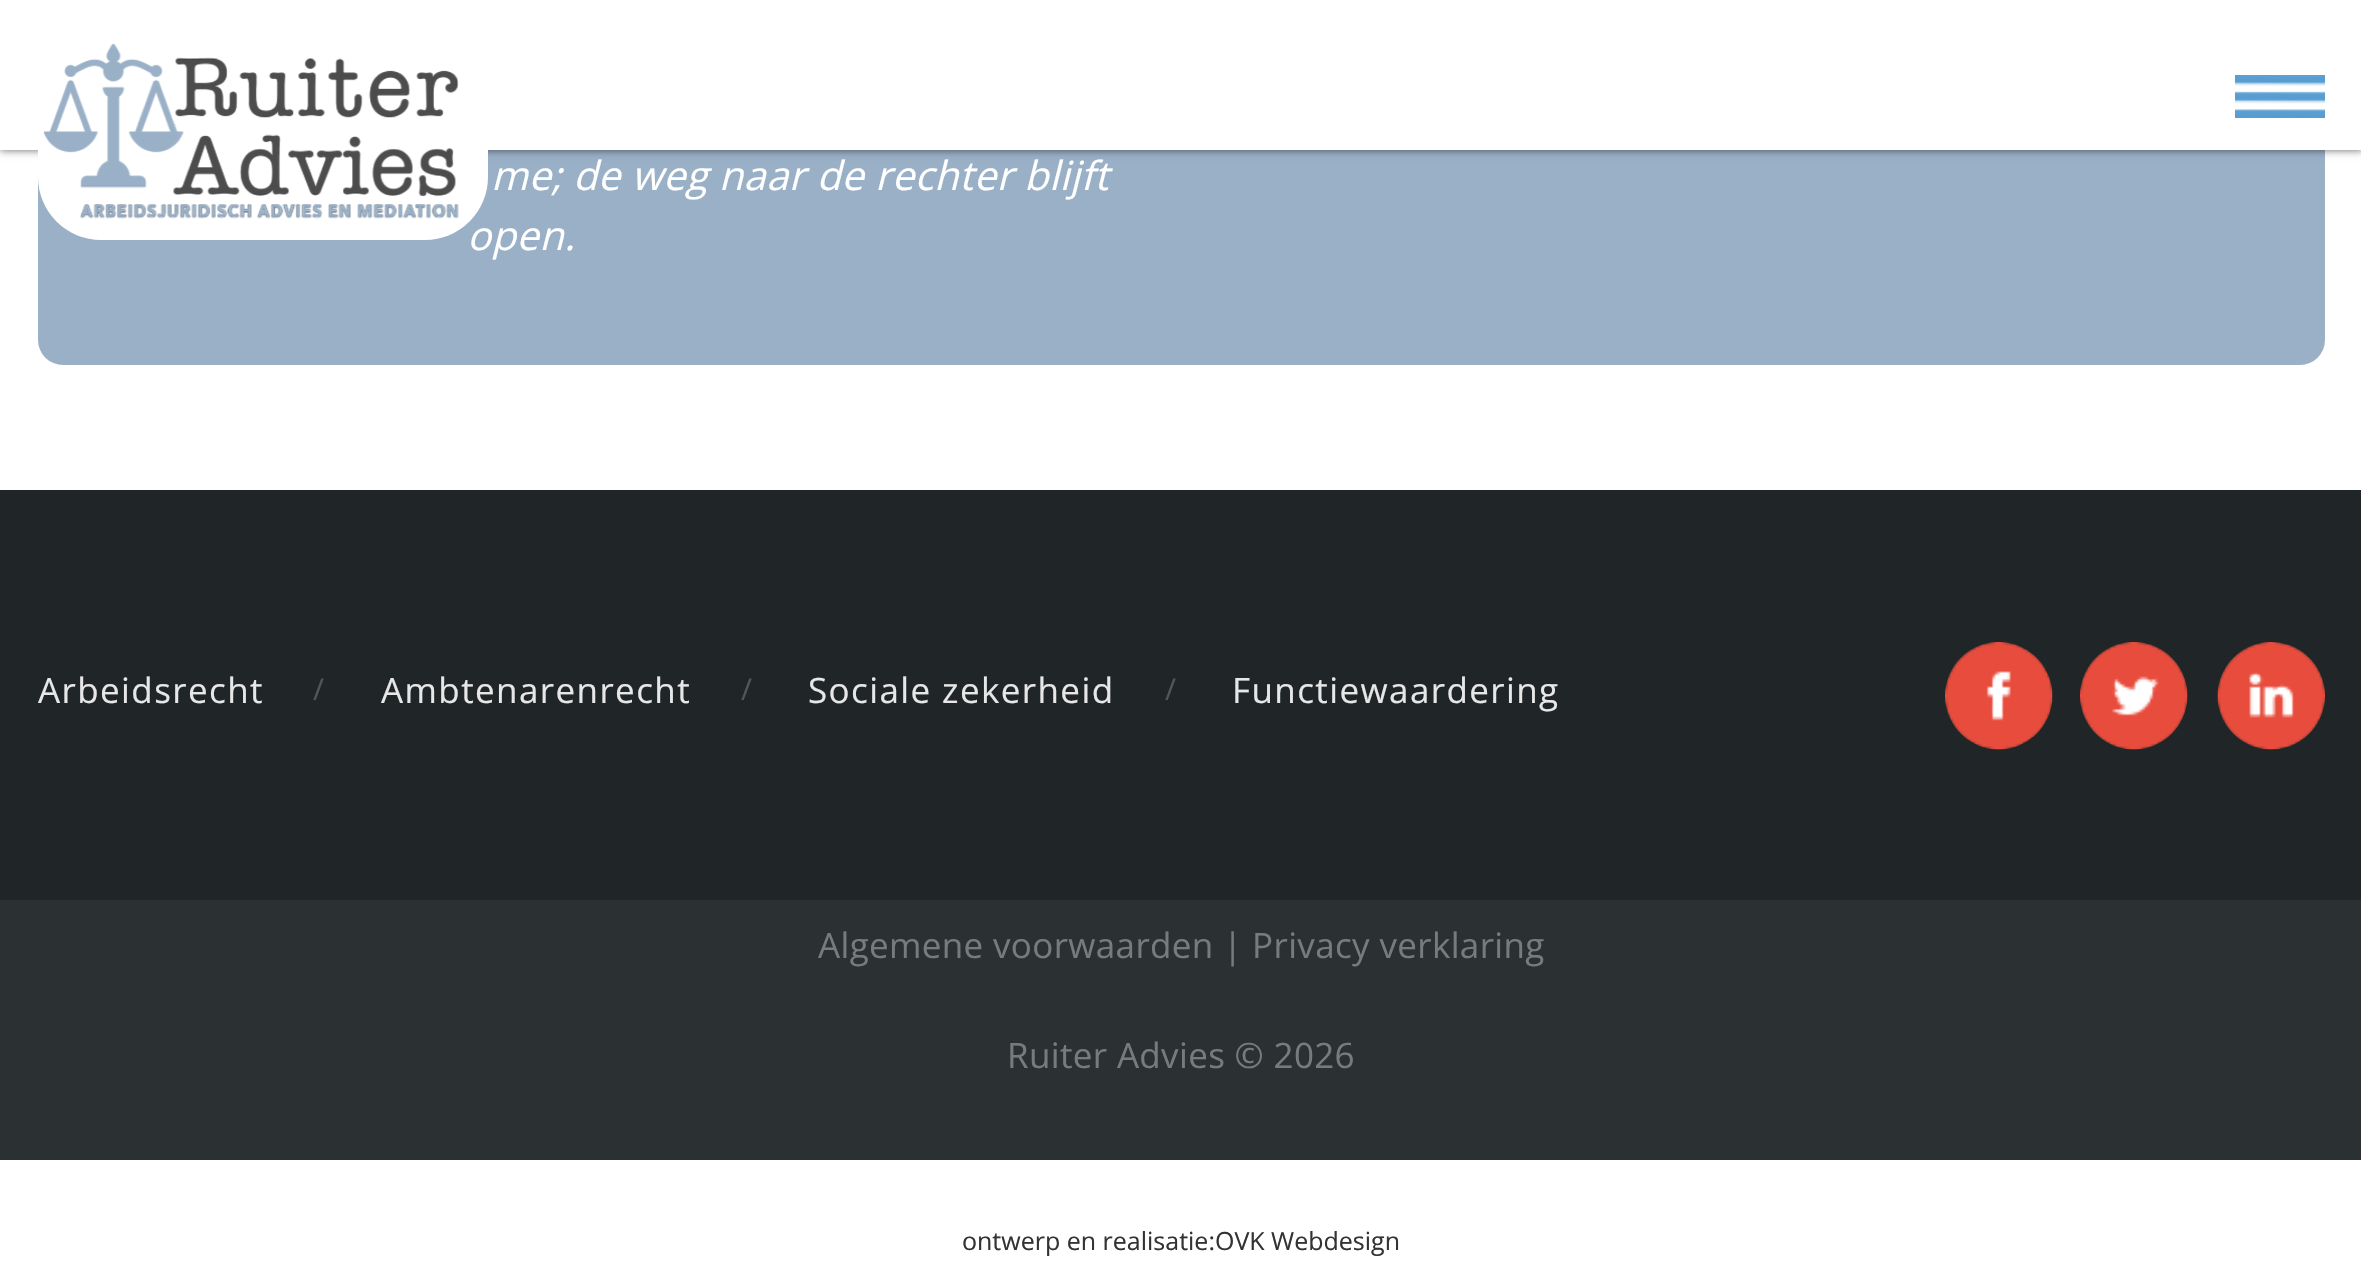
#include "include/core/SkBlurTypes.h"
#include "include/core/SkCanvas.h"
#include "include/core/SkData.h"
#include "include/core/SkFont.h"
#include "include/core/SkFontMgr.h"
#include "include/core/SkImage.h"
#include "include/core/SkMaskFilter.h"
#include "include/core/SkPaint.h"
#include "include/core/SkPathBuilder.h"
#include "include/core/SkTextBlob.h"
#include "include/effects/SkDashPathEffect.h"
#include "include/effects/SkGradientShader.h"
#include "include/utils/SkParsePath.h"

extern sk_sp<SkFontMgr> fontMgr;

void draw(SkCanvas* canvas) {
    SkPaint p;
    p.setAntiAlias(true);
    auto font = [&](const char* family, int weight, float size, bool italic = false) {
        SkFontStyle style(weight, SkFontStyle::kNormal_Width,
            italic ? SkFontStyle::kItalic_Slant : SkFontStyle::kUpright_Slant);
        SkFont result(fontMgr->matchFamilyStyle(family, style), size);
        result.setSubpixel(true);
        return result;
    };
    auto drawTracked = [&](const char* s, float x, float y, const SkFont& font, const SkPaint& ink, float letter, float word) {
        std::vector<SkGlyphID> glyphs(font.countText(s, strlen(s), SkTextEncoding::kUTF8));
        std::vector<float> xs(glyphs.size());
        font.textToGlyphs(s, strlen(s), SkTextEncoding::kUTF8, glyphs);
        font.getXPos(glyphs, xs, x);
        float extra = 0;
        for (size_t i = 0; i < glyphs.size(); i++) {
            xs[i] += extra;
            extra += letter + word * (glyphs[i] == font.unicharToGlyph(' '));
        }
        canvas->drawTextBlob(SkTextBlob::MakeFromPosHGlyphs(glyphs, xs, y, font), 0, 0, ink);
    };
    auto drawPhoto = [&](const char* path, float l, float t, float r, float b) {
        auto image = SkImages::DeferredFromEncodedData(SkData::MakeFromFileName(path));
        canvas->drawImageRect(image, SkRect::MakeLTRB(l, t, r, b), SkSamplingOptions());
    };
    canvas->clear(0xFFFFFFFF);
    p.setColor(0xFF9AB0C7);
    canvas->drawRoundRect(SkRect::MakeLTRB(38, -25, 2325, 365), 25, 25, p);
    p.setColor(0x99000000);
    p.setMaskFilter(SkMaskFilter::MakeBlur(kNormal_SkBlurStyle, 4));
    canvas->drawRect(SkRect::MakeLTRB(0, 0, 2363, 150), p);
    p.setMaskFilter(nullptr);
    p.setColor(0xFFFFFFFF);
    canvas->drawRect(SkRect::MakeLTRB(0, 0, 2361, 150), p);
    canvas->drawRoundRect(SkRect::MakeLTRB(38, 25, 488, 240), 63, 63, p);
    drawPhoto("media/1.png", 43, 44, 459, 219);
    drawPhoto("media/2.png", 44, 43, 459, 218);
    drawPhoto("media/3.png", 2235, 75, 2325, 118);
    drawPhoto("media/4.png", 2235, 75, 2325, 113);
    auto font1 = font("Open Sans", 400, 40, true);
    drawTracked("me; de weg naar de rechter blijft", 491, 190, font1, p, 0.4f, 0);
    drawTracked("open.", 467, 250, font1, p, 0.4f, 0);
    p.setColor(0xFF202628);
    canvas->drawRect(SkRect::MakeLTRB(0, 490, 2361, 900), p);
    auto font2 = font("Open Sans", 400, 35);
    p.setColor(0xFFE7E7E7);
    drawTracked("Arbeidsrecht", 38, 703, font2, p, 1.4f, 0);
    auto font3 = font("Open Sans", 400, 30);
    p.setColor(0xFF515759);
    canvas->drawString("/", 313, 700, font3, p);
    p.setColor(0xFFE7E7E7);
    drawTracked("Ambtenarenrecht", 381, 703, font2, p, 1.4f, 0);
    p.setColor(0xFF515759);
    canvas->drawString("/", 741, 700, font3, p);
    p.setColor(0xFFE7E7E7);
    drawTracked("Sociale zekerheid", 808, 703, font2, p, 1.4f, 0);
    p.setColor(0xFF515759);
    canvas->drawString("/", 1165, 700, font3, p);
    p.setColor(0xFFE7E7E7);
    drawTracked("Functiewaardering", 1232, 703, font2, p, 1.4f, 0);
    drawPhoto("media/5.png", 1945, 642, 2053, 750);
    drawPhoto("media/6.png", 2080, 642, 2188, 750);
    drawPhoto("media/7.png", 2217, 642, 2325, 750);
    p.setColor(0xFF2B3032);
    canvas->drawRect(SkRect::MakeLTRB(0, 900, 2361, 1160), p);
    p.setColor(0xFF767C7E);
    drawTracked("Algemene voorwaarden | Privacy verklaring", 818, 958, font2, p, 0.35f, 0);
    drawTracked("Ruiter Advies © 2026", 1007, 1068, font2, p, 0.35f, 0);
    auto font4 = font("Open Sans", 400, 25);
    p.setColor(0xFF333333);
    canvas->drawString("ontwerp en realisatie:OVK Webdesign", 962, 1250, font4, p);
}
